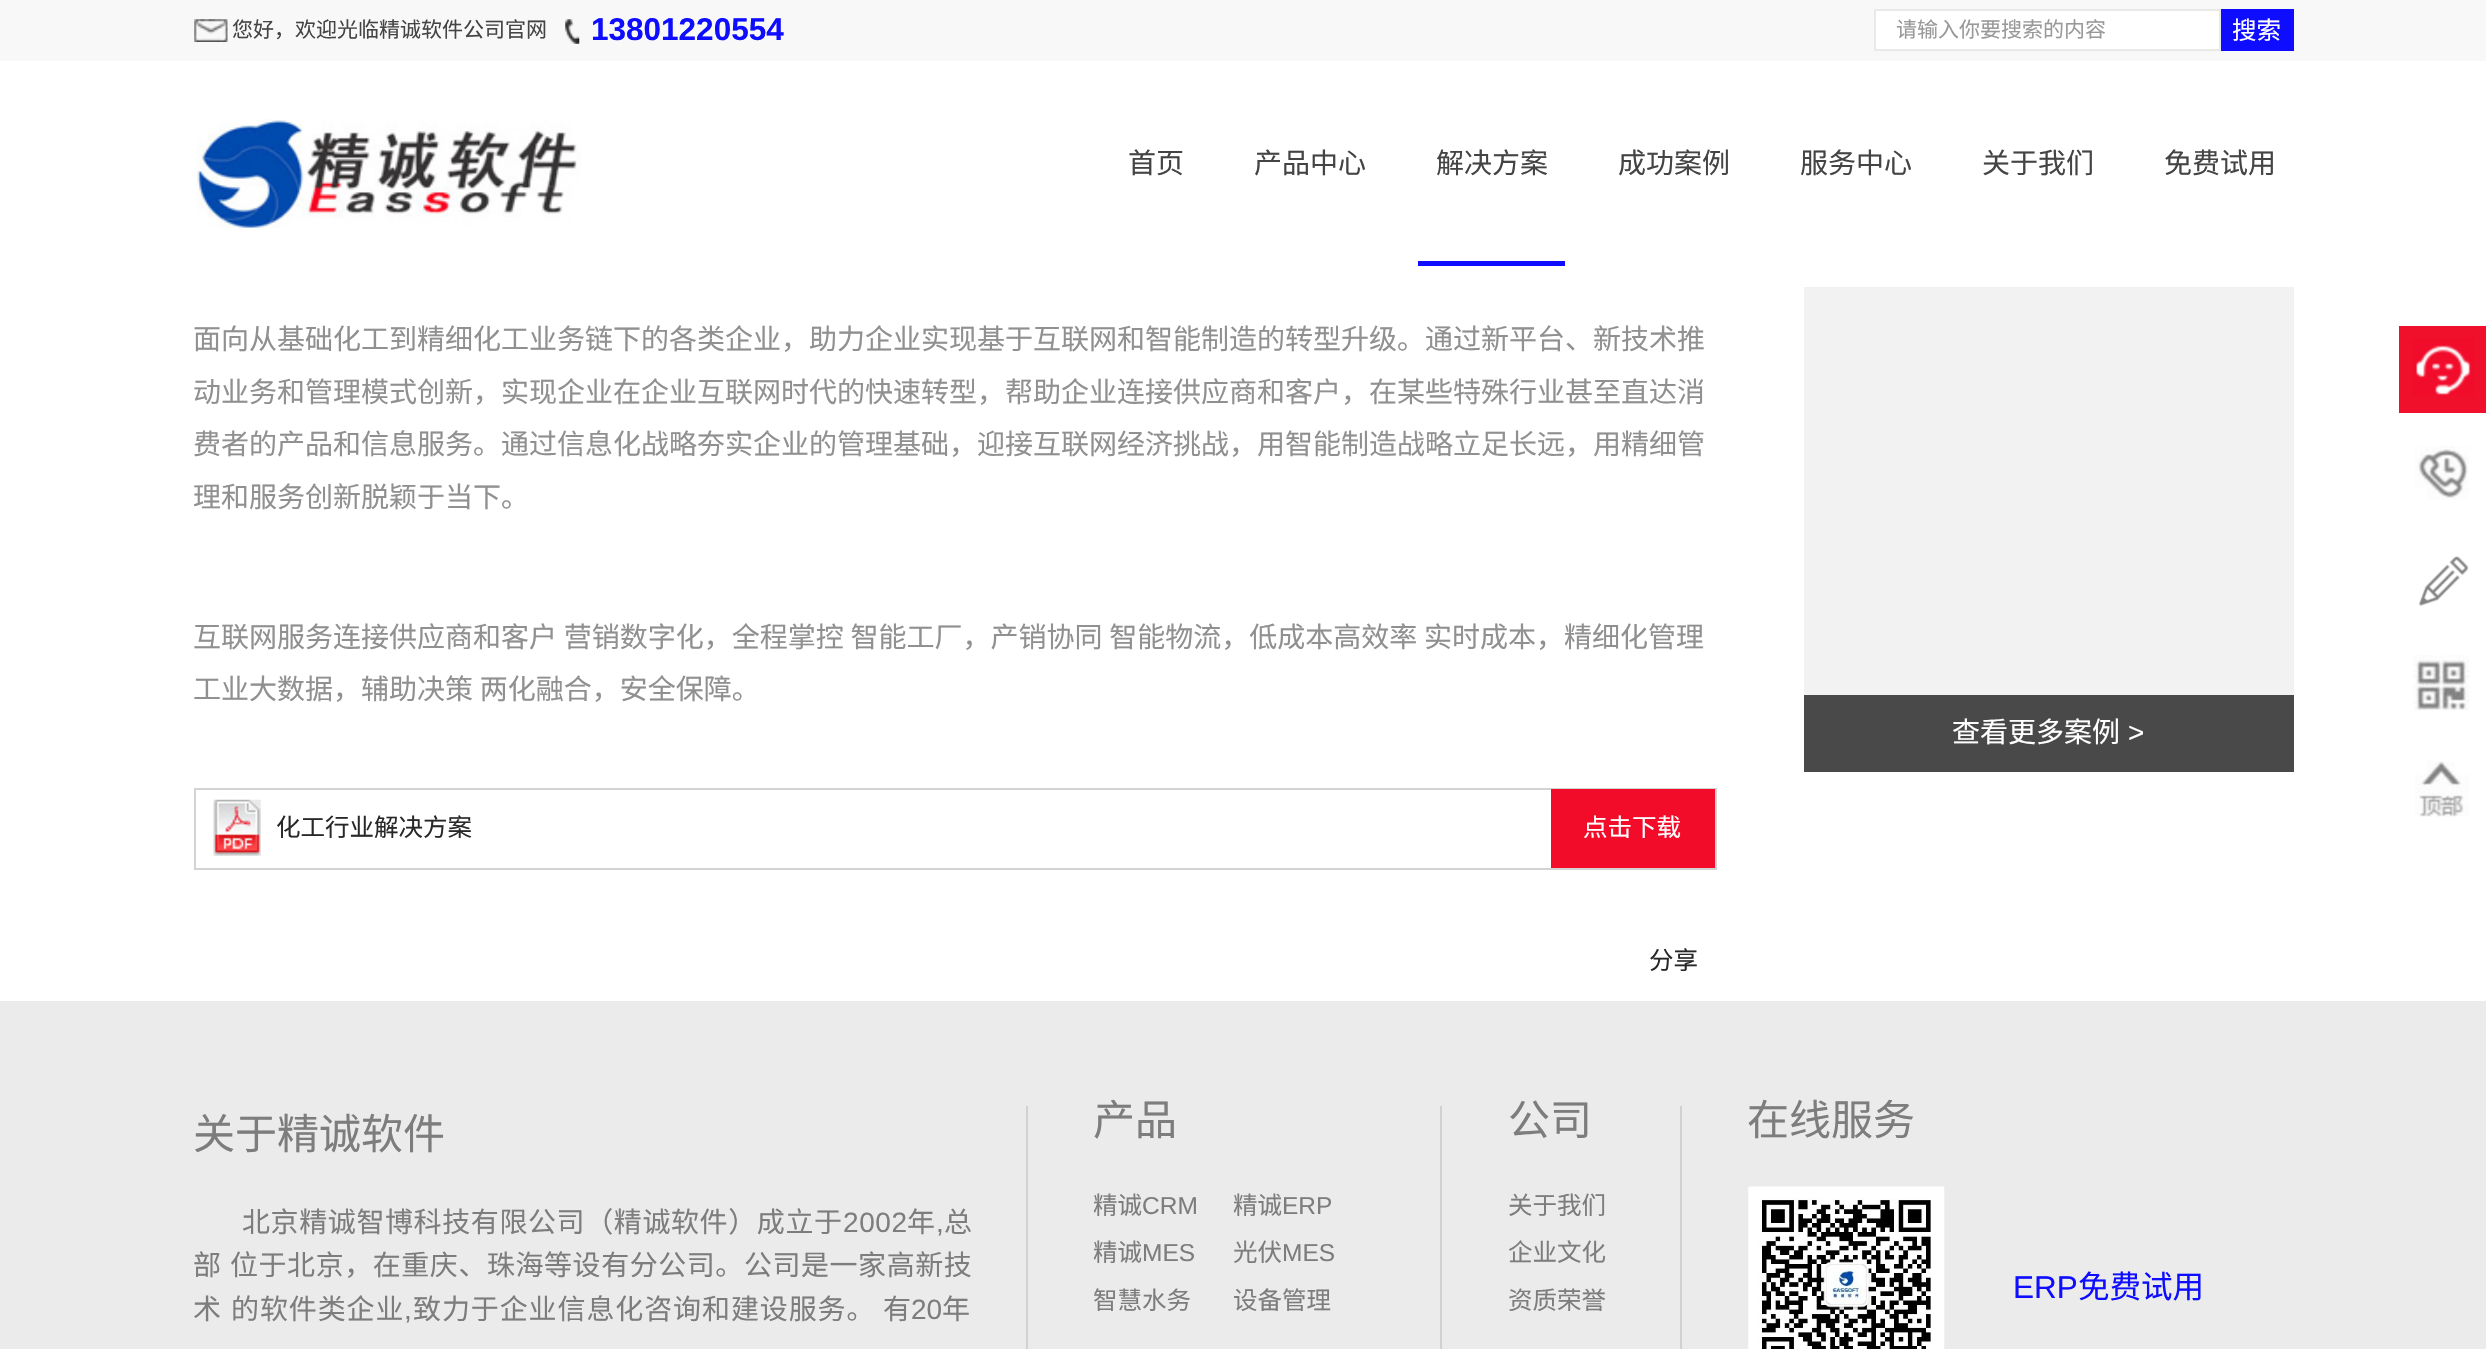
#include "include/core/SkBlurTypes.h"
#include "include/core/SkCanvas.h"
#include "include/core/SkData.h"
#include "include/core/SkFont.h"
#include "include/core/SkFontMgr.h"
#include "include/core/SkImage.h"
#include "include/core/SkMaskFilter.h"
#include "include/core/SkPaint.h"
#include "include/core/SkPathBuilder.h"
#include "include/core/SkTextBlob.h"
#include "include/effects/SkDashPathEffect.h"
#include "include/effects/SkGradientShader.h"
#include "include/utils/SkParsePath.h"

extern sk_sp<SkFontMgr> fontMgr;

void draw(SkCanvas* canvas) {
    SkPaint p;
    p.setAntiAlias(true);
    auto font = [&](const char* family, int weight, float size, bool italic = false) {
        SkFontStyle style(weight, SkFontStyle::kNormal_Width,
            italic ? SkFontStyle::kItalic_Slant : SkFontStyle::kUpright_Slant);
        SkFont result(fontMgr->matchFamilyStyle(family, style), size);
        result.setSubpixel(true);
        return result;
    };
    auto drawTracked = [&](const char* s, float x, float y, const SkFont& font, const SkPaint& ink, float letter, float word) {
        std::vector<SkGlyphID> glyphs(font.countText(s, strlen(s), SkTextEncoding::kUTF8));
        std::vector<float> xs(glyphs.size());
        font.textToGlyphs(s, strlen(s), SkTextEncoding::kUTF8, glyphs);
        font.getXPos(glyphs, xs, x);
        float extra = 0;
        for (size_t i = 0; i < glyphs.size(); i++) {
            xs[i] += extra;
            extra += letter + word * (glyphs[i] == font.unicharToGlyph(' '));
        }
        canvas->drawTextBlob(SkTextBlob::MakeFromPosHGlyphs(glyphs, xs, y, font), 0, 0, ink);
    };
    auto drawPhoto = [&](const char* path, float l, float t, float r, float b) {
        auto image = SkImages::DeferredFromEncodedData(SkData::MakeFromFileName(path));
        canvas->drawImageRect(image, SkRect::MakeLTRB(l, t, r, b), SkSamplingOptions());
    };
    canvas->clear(0xFFFFFFFF);
    p.setColor(0xFFF8F8F8);
    canvas->drawRect(SkRect::MakeLTRB(0, 0, 2486, 61), p);
    drawPhoto("media/1.png", 194, 19, 228, 42);
    auto font1 = font("Noto Sans CJK SC", 400, 21);
    p.setColor(0xFF444444);
    canvas->drawString("您好，欢迎光临精诚软件公司官网", 232, 37, font1, p);
    drawPhoto("media/2.png", 565, 19, 580, 44);
    auto font2 = font("Liberation Sans", 700, 31.5f);
    p.setColor(0xFF0E0DFF);
    canvas->drawString("13801220554", 591, 40, font2, p);
    p.setColor(0xFFFFFFFF);
    canvas->drawRect(SkRect::MakeLTRB(1875, 10, 2220, 50), p);
    p.setStyle(SkPaint::kStroke_Style);
    p.setStrokeWidth(2);
    p.setColor(0xFFE9E9E9);
    canvas->drawRect(SkRect::MakeLTRB(1875, 10, 2220, 50), p);
    p.setStyle(SkPaint::kFill_Style);
    p.setColor(0xFF999999);
    canvas->drawString("请输入你要搜索的内容", 1896, 37, font1, p);
    p.setColor(0xFF0E0DFF);
    canvas->drawRect(SkRect::MakeLTRB(2221, 9, 2294, 51), p);
    auto font3 = font("Noto Sans CJK SC", 400, 24.5f);
    p.setColor(0xFFFFFFFF);
    canvas->drawString("搜索", 2232, 39, font3, p);
    drawPhoto("media/3.png", 197, 119, 581, 228);
    auto font4 = font("Noto Sans CJK SC", 400, 28);
    p.setColor(0xFF444444);
    {
        const struct { const char* s; float x, y; } items[] = {
            {"首页", 1128, 173},
            {"产品中心", 1254, 173},
            {"解决方案", 1436, 173},
        };
        for (auto [s, x, y] : items) {
            canvas->drawString(s, x, y, font4, p);
        }
    }
    p.setColor(0xFF0E0DFF);
    canvas->drawRect(SkRect::MakeLTRB(1418, 261, 1565, 266), p);
    p.setColor(0xFF444444);
    {
        const struct { const char* s; float x, y; } items[] = {
            {"成功案例", 1618, 173},
            {"服务中心", 1800, 173},
            {"关于我们", 1982, 173},
            {"免费试用", 2164, 173},
        };
        for (auto [s, x, y] : items) {
            canvas->drawString(s, x, y, font4, p);
        }
    }
    p.setColor(0xFF909090);
    {
        const struct { const char* s; float x, y; } items[] = {
            {"面向从基础化工到精细化工业务链下的各类企业，助力企业实现基于互联网和智能制造的转型升级。通过新平台、新技术推", 193, 349},
            {"动业务和管理模式创新，实现企业在企业互联网时代的快速转型，帮助企业连接供应商和客户，在某些特殊行业甚至直达消", 193, 402},
            {"费者的产品和信息服务。通过信息化战略夯实企业的管理基础，迎接互联网经济挑战，用智能制造战略立足长远，用精细管", 193, 454},
            {"理和服务创新脱颖于当下。", 193, 507},
        };
        for (auto [s, x, y] : items) {
            canvas->drawString(s, x, y, font4, p);
        }
    }
    drawTracked("互联网服务连接供应商和客户 营销数字化，全程掌控 智能工厂，产销协同 智能物流，低成本高效率 实时成本，精细化管理", 193, 647, font4, p, 0, 0.5f);
    drawTracked("工业大数据，辅助决策 两化融合，安全保障。", 193, 699, font4, p, 0, 0.5f);
    drawPhoto("media/4.png", 213, 799, 261, 856);
    p.setStyle(SkPaint::kStroke_Style);
    p.setColor(0xFFD3D3D3);
    canvas->drawRect(SkRect::MakeLTRB(195, 789, 1716, 869), p);
    p.setStyle(SkPaint::kFill_Style);
    p.setColor(0xFF282828);
    canvas->drawString("化工行业解决方案", 276, 836, font3, p);
    p.setColor(0xFFF30C2A);
    canvas->drawRect(SkRect::MakeLTRB(1551, 789, 1715, 868), p);
    p.setColor(0xFFFFFFFF);
    canvas->drawString("点击下载", 1583, 836, font3, p);
    p.setColor(0xFF282828);
    canvas->drawString("分享", 1649, 969, font3, p);
    p.setColor(0xFFF2F2F2);
    canvas->drawRect(SkRect::MakeLTRB(1804, 287, 2294, 695), p);
    p.setColor(0xFF494949);
    canvas->drawRect(SkRect::MakeLTRB(1804, 695, 2294, 772), p);
    p.setColor(0xFFFFFFFF);
    canvas->drawString("查看更多案例", 1952, 742, font4, p);
    auto font5 = font("Liberation Sans", 400, 28);
    canvas->drawString(">", 2128, 742, font5, p);
    p.setColor(0xFFF0102B);
    canvas->drawRect(SkRect::MakeLTRB(2399, 326, 2486, 413), p);
    drawPhoto("media/5.png", 2412, 338, 2474, 395);
    drawPhoto("media/6.png", 2415, 446, 2469, 500);
    drawPhoto("media/7.png", 2419, 556, 2469, 606);
    drawPhoto("media/8.png", 2413, 655, 2470, 711);
    drawPhoto("media/9.png", 2415, 761, 2469, 817);
    p.setColor(0xFFEBEBEB);
    canvas->drawRect(SkRect::MakeLTRB(0, 1001, 2486, 1349), p);
    auto font6 = font("Noto Sans CJK SC", 400, 42);
    p.setColor(0xFF7D7D7D);
    canvas->drawString("关于精诚软件", 193, 1149, font6, p);
    drawTracked("北京精诚智博科技有限公司（精诚软件）成立于", 242, 1232, font4, p, 0.6f, 0);
    drawTracked("2002", 843, 1232, font5, p, 0.6f, 0);
    drawTracked("年", 907, 1232, font4, p, 0.6f, 0);
    drawTracked(",", 936, 1232, font5, p, 0.6f, 0);
    drawTracked("总", 944, 1232, font4, p, 0.6f, 0);
    canvas->drawString("部", 193, 1275, font4, p);
    drawTracked("位于北京，在重庆、珠海等设有分公司。公司是一家高新技", 230, 1275, font4, p, 0.55f, 0);
    canvas->drawString("术", 193, 1319, font4, p);
    drawTracked("的软件类企业", 231, 1319, font4, p, 0.9f, 0);
    drawTracked(",", 404, 1319, font5, p, 0.9f, 0);
    drawTracked("致力于企业信息化咨询和建设服务。", 413, 1319, font4, p, 0.9f, 0);
    canvas->drawString("有", 883, 1319, font4, p);
    canvas->drawString("20", 911, 1319, font5, p);
    canvas->drawString("年", 942, 1319, font4, p);
    p.setColor(0xFFD1D1D1);
    canvas->drawRect(SkRect::MakeLTRB(1026, 1106, 1028, 1349), p);
    p.setColor(0xFF7D7D7D);
    canvas->drawString("产品", 1093, 1135, font6, p);
    canvas->drawString("精诚", 1093, 1214, font3, p);
    auto font7 = font("Liberation Sans", 400, 24.5f);
    canvas->drawString("CRM", 1142, 1214, font7, p);
    canvas->drawString("精诚", 1233, 1214, font3, p);
    canvas->drawString("ERP", 1282, 1214, font7, p);
    canvas->drawString("精诚", 1093, 1261, font3, p);
    canvas->drawString("MES", 1142, 1261, font7, p);
    canvas->drawString("光伏", 1233, 1261, font3, p);
    canvas->drawString("MES", 1282, 1261, font7, p);
    canvas->drawString("智慧水务", 1093, 1309, font3, p);
    canvas->drawString("设备管理", 1233, 1309, font3, p);
    p.setColor(0xFFD1D1D1);
    canvas->drawRect(SkRect::MakeLTRB(1440, 1106, 1442, 1349), p);
    p.setColor(0xFF7D7D7D);
    canvas->drawString("公司", 1508, 1135, font6, p);
    {
        const struct { const char* s; float x, y; } items[] = {
            {"关于我们", 1508, 1214},
            {"企业文化", 1508, 1261},
            {"资质荣誉", 1508, 1309},
        };
        for (auto [s, x, y] : items) {
            canvas->drawString(s, x, y, font3, p);
        }
    }
    p.setColor(0xFFD1D1D1);
    canvas->drawRect(SkRect::MakeLTRB(1680, 1106, 1682, 1349), p);
    p.setColor(0xFF7D7D7D);
    canvas->drawString("在线服务", 1747, 1135, font6, p);
    drawPhoto("media/10.png", 1748, 1186, 1945, 1349);
    auto font8 = font("Liberation Sans", 400, 31.5f);
    p.setColor(0xFF0E0DFF);
    canvas->drawString("ERP", 2013, 1298, font8, p);
    auto font9 = font("Noto Sans CJK SC", 400, 31.5f);
    canvas->drawString("免费试用", 2078, 1298, font9, p);
}
